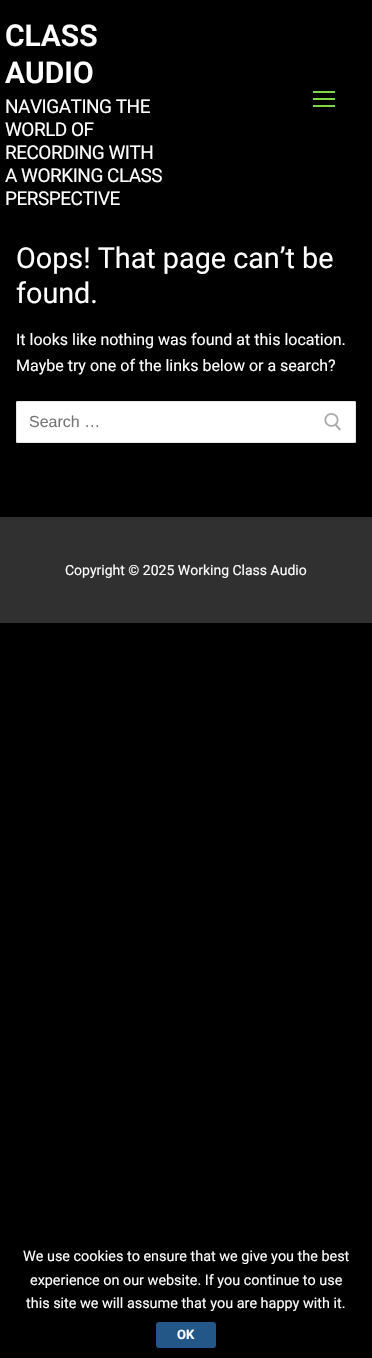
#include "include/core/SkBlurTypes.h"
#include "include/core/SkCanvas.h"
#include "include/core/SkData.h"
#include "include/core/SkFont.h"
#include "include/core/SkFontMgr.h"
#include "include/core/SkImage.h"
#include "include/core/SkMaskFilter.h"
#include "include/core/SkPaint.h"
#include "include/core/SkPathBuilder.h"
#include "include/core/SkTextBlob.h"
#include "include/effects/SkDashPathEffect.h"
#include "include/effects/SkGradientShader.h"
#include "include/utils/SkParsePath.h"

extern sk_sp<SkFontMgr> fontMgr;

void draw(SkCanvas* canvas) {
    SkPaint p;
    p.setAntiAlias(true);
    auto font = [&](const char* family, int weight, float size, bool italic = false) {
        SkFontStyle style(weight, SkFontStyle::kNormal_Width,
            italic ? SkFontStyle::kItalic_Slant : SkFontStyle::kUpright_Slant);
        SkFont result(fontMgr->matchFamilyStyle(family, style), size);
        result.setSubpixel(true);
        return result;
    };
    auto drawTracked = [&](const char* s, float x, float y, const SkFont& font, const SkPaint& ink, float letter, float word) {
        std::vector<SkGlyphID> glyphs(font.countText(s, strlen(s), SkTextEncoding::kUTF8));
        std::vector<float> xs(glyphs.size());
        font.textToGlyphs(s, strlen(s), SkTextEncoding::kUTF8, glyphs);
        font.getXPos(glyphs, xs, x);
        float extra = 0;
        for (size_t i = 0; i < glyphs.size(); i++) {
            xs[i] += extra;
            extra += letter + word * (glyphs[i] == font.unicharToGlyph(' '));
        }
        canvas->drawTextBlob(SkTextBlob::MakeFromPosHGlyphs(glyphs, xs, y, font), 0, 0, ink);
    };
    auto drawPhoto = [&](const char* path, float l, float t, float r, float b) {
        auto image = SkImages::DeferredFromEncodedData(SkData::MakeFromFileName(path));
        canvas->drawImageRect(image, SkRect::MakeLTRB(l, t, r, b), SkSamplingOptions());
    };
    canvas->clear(0xFF000000);
    auto font1 = font("Roboto", 600, 30);
    p.setColor(0xFFFFFFFF);
    canvas->drawString("CLASS", 5, 46, font1, p);
    canvas->drawString("AUDIO", 5, 83, font1, p);
    auto font2 = font("Roboto", 400, 19);
    {
        const struct { const char* s; float x, y; } items[] = {
            {"NAVIGATING THE", 5, 113},
            {"WORLD OF", 5, 136},
            {"RECORDING WITH", 5, 159},
            {"A WORKING CLASS", 5, 182},
            {"PERSPECTIVE", 5, 205},
        };
        for (auto [s, x, y] : items) {
            drawTracked(s, x, y, font2, p, -0.5f, 0);
        }
    }
    {
        const struct { float l, t, r, b; SkColor color; } items[] = {
            {313, 98, 335, 100, 0xFF81D742},
            {313, 91, 335, 93, 0xFF81D742},
            {313, 105, 335, 107, 0xFF81D742},
        };
        for (auto [l, t, r, b, color] : items) {
            p.setColor(color);
            canvas->drawRect(SkRect::MakeLTRB(l, t, r, b), p);
        }
    }
    auto font3 = font("Roboto", 400, 28.75f);
    p.setColor(0xFFFFFFFF);
    canvas->drawString("Oops! That page can’t be", 16, 268, font3, p);
    canvas->drawString("found.", 16, 303, font3, p);
    auto font4 = font("Roboto", 400, 16);
    canvas->drawString("It looks like nothing was found at this location.", 16, 345, font4, p);
    canvas->drawString("Maybe try one of the links below or a search?", 16, 371, font4, p);
    canvas->drawRoundRect(SkRect::MakeLTRB(16.5f, 401.5f, 355.5f, 442.5f), 0.5f, 0.5f, p);
    p.setStyle(SkPaint::kStroke_Style);
    p.setStrokeWidth(1);
    p.setColor(0xFFE5E5E5);
    canvas->drawRoundRect(SkRect::MakeLTRB(16.5f, 401.5f, 355.5f, 442.5f), 0.5f, 0.5f, p);
    auto font5 = font("Liberation Sans", 400, 16);
    p.setStyle(SkPaint::kFill_Style);
    p.setColor(0xFF757575);
    canvas->drawString("Search …", 29, 427, font5, p);
    drawPhoto("media/1.png", 324, 413, 341, 431);
    p.setColor(0xFF303030);
    canvas->drawRect(SkRect::MakeLTRB(0, 517, 372, 623), p);
    auto font6 = font("Roboto", 400, 14);
    p.setColor(0xFFFFFFFF);
    canvas->drawString("Copyright © 2025 Working Class Audio", 65, 575, font6, p);
    auto font7 = font("Roboto", 400, 14.4f);
    {
        const struct { const char* s; float x, y; } items[] = {
            {"We use cookies to ensure that we give you the best", 23, 1261},
            {"experience on our website. If you continue to use", 30, 1285},
            {"this site we will assume that you are happy with it.", 26, 1308},
        };
        for (auto [s, x, y] : items) {
            canvas->drawString(s, x, y, font7, p);
        }
    }
    p.setColor(0xFF235787);
    canvas->drawRoundRect(SkRect::MakeLTRB(156, 1322, 216, 1348), 3, 3, p);
    auto font8 = font("Roboto", 700, 13);
    p.setColor(0xFFFFFFFF);
    canvas->drawString("OK", 177, 1339, font8, p);
}
